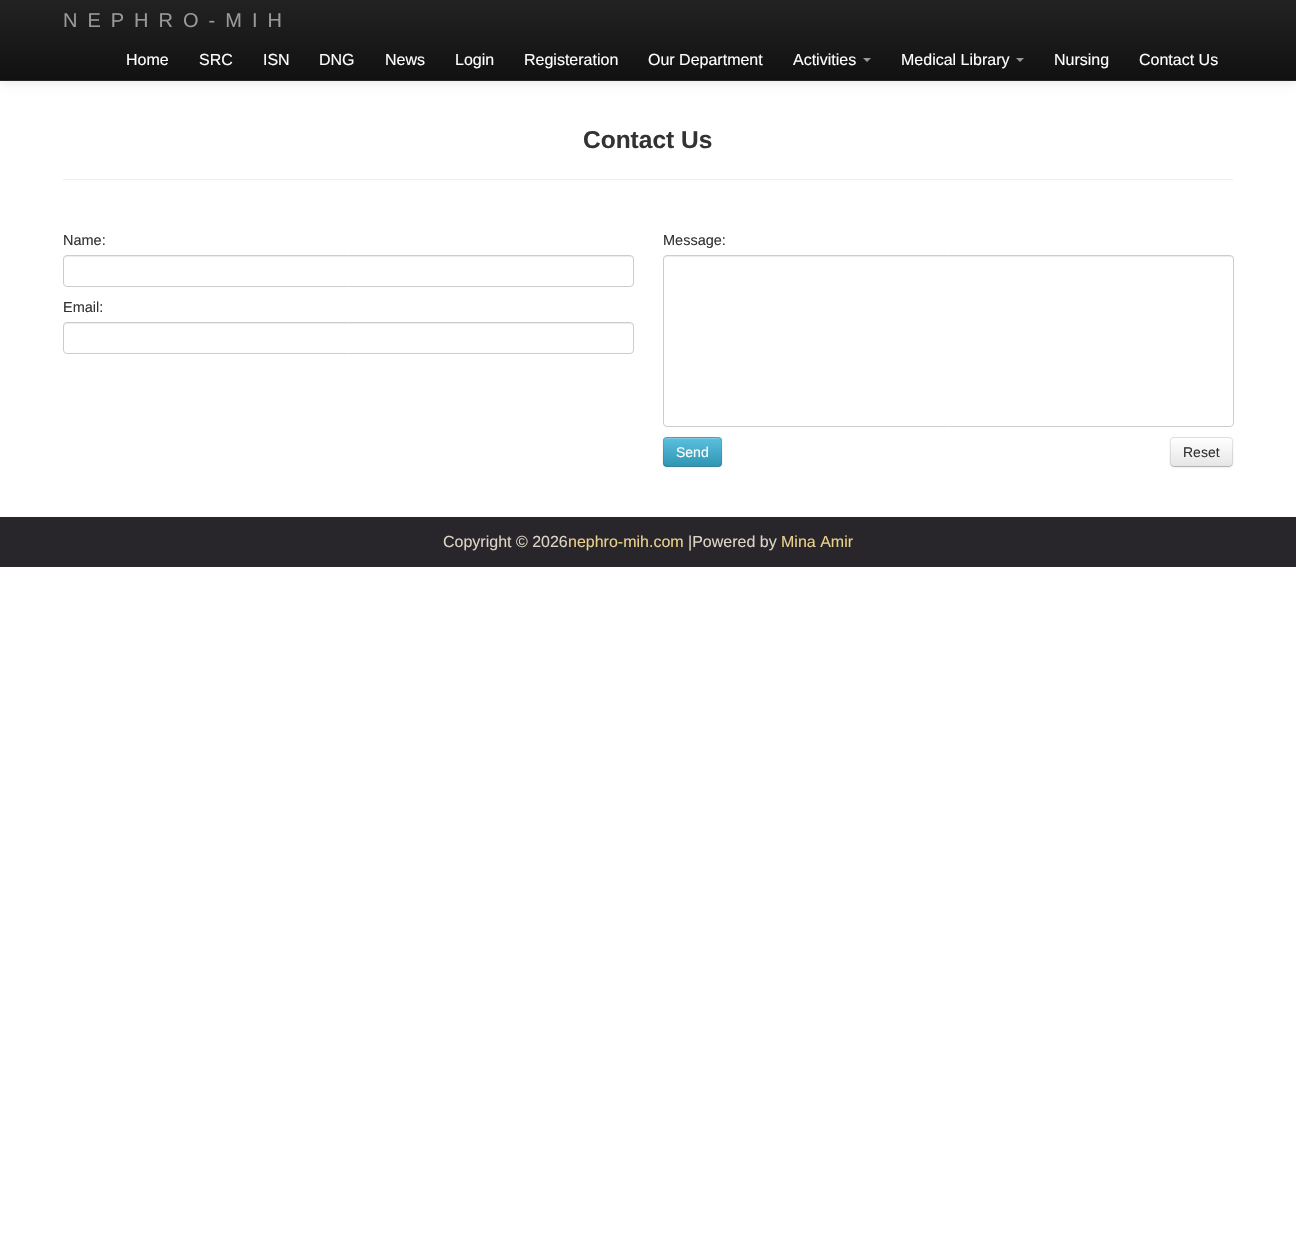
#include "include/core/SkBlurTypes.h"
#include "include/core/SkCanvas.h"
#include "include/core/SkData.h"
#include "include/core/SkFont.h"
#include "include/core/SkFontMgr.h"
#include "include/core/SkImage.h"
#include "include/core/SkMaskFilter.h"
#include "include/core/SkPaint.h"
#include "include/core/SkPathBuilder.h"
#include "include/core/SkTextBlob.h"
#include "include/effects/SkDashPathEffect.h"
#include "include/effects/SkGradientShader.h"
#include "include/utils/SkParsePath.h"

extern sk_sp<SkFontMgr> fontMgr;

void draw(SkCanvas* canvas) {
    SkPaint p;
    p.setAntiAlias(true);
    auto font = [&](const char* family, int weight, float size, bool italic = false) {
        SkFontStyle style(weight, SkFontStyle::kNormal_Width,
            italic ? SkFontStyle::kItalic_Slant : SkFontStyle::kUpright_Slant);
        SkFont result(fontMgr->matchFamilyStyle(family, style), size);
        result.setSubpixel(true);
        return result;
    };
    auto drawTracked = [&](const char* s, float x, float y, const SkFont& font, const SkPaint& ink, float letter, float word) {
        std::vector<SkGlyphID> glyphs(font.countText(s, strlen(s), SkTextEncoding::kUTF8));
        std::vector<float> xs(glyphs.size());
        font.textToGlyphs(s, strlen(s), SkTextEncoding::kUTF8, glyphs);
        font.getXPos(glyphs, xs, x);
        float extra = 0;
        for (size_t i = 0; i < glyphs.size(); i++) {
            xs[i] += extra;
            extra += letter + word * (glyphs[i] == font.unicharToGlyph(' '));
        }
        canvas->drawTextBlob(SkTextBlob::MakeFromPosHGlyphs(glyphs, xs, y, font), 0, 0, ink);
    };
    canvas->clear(0xFFFFFFFF);
    p.setColor(0x1A000000);
    p.setMaskFilter(SkMaskFilter::MakeBlur(kNormal_SkBlurStyle, 5));
    canvas->drawRect(SkRect::MakeLTRB(0, 1, 1296, 82), p);
    p.setMaskFilter(nullptr);
    {
        const SkColor colors[] = {0xFF222222, 0xFF111111};
        const float stops[] = {0, 1};
        const SkPoint ends[] = {{648, 0}, {648, 80}};
        p.setShader(SkGradientShader::MakeLinear(ends, colors, stops, 2, SkTileMode::kClamp));
        p.setAlpha(255);
    }
    canvas->drawRect(SkRect::MakeLTRB(0, 0, 1296, 80), p);
    p.setShader(nullptr);
    p.setColor(0xFF252525);
    canvas->drawRect(SkRect::MakeLTRB(0, 80, 1296, 81), p);
    auto font1 = font("Liberation Sans", 400, 20);
    p.setColor(0xFF999999);
    drawTracked("NEPHRO-MIH", 63, 27, font1, p, 10, 0);
    auto font2 = font("Liberation Sans", 400, 16);
    p.setColor(0xFFFFFFFF);
    {
        const struct { const char* s; float x, y; } items[] = {
            {"Home", 126, 65},
            {"SRC", 199, 65},
            {"ISN", 263, 65},
            {"DNG", 319, 65},
            {"News", 385, 65},
            {"Login", 455, 65},
            {"Registeration", 524, 65},
            {"Our Department", 648, 65},
            {"Activities", 793, 65},
        };
        for (auto [s, x, y] : items) {
            canvas->drawString(s, x, y, font2, p);
        }
    }
    p.setColor(0xFF999999);
    canvas->drawPath(SkPathBuilder().moveTo(863, 58).lineTo(871, 58).lineTo(867, 62).close().detach(), p);
    p.setColor(0xFFFFFFFF);
    canvas->drawString("Medical Library", 901, 65, font2, p);
    p.setColor(0xFF999999);
    canvas->drawPath(SkPathBuilder().moveTo(1016, 58).lineTo(1024, 58).lineTo(1020, 62).close().detach(), p);
    p.setColor(0xFFFFFFFF);
    canvas->drawString("Nursing", 1054, 65, font2, p);
    canvas->drawString("Contact Us", 1139, 65, font2, p);
    p.setColor(0xFFEEEEEE);
    canvas->drawRect(SkRect::MakeLTRB(63, 179, 1233, 180), p);
    auto font3 = font("Liberation Sans", 700, 24.5f);
    p.setColor(0xFF333333);
    canvas->drawString("Contact Us", 583, 148, font3, p);
    auto font4 = font("Liberation Sans", 400, 14.5f);
    canvas->drawString("Name:", 63, 245, font4, p);
    p.setColor(0xFFECECEC);
    canvas->drawPath(SkPathBuilder().moveTo(67, 257).lineTo(630, 257).cubicTo(632, 257, 633, 258, 633, 260).lineTo(633, 259).cubicTo(633, 257, 632, 256, 630, 256).lineTo(67, 256).cubicTo(65, 256, 64, 257, 64, 259).lineTo(64, 260).cubicTo(64, 258, 65, 257, 67, 257).close().detach(), p);
    p.setStyle(SkPaint::kStroke_Style);
    p.setStrokeWidth(1);
    p.setColor(0xFFCCCCCC);
    canvas->drawRoundRect(SkRect::MakeLTRB(63.5f, 255.5f, 633.5f, 286.5f), 3.5f, 3.5f, p);
    p.setStyle(SkPaint::kFill_Style);
    p.setColor(0xFF333333);
    canvas->drawString("Email:", 63, 312, font4, p);
    p.setColor(0xFFECECEC);
    canvas->drawPath(SkPathBuilder().moveTo(67, 324).lineTo(630, 324).cubicTo(632, 324, 633, 325, 633, 327).lineTo(633, 326).cubicTo(633, 324, 632, 323, 630, 323).lineTo(67, 323).cubicTo(65, 323, 64, 324, 64, 326).lineTo(64, 327).cubicTo(64, 325, 65, 324, 67, 324).close().detach(), p);
    p.setStyle(SkPaint::kStroke_Style);
    p.setColor(0xFFCCCCCC);
    canvas->drawRoundRect(SkRect::MakeLTRB(63.5f, 322.5f, 633.5f, 353.5f), 3.5f, 3.5f, p);
    p.setStyle(SkPaint::kFill_Style);
    p.setColor(0xFF333333);
    canvas->drawString("Message:", 663, 245, font4, p);
    p.setColor(0xFFECECEC);
    canvas->drawPath(SkPathBuilder().moveTo(667, 257).lineTo(1230, 257).cubicTo(1232, 257, 1233, 258, 1233, 260).lineTo(1233, 259).cubicTo(1233, 257, 1232, 256, 1230, 256).lineTo(667, 256).cubicTo(665, 256, 664, 257, 664, 259).lineTo(664, 260).cubicTo(664, 258, 665, 257, 667, 257).close().detach(), p);
    p.setStyle(SkPaint::kStroke_Style);
    p.setColor(0xFFCCCCCC);
    canvas->drawRoundRect(SkRect::MakeLTRB(663.5f, 255.5f, 1233.5f, 426.5f), 3.5f, 3.5f, p);
    p.setStyle(SkPaint::kFill_Style);
    p.setColor(0x0D000000);
    p.setMaskFilter(SkMaskFilter::MakeBlur(kNormal_SkBlurStyle, 1));
    canvas->drawRoundRect(SkRect::MakeLTRB(663, 438, 722, 468), 4, 4, p);
    p.setMaskFilter(nullptr);
    p.setColor(0xFF49AFCD);
    canvas->drawRoundRect(SkRect::MakeLTRB(663, 437, 722, 467), 4, 4, p);
    canvas->save();
    canvas->clipPath(SkPathBuilder().moveTo(667, 437).lineTo(718, 437).cubicTo(720, 437, 722, 439, 722, 441).lineTo(722, 463).cubicTo(722, 465, 720, 467, 718, 467).lineTo(667, 467).cubicTo(665, 467, 663, 465, 663, 463).lineTo(663, 441).cubicTo(663, 439, 665, 437, 667, 437).close().detach(), true);
    {
        const SkColor colors[] = {0xFF5BC0DE, 0xFF2F96B4};
        const float stops[] = {0, 1};
        const SkPoint ends[] = {{693, 438}, {693, 466}};
        p.setShader(SkGradientShader::MakeLinear(ends, colors, stops, 2, SkTileMode::kClamp));
        p.setAlpha(255);
    }
    canvas->drawRect(SkRect::MakeLTRB(663, 438, 722, 466), p);
    canvas->restore();
    p.setShader(nullptr);
    p.setColor(0xFF7BCCE4);
    canvas->drawPath(SkPathBuilder().moveTo(667, 439).lineTo(718, 439).cubicTo(720, 439, 721, 440, 721, 442).cubicTo(721, 436, 714, 438, 710, 438).lineTo(676, 438).cubicTo(671, 438, 664, 436, 664, 442).cubicTo(664, 440, 665, 439, 667, 439).close().detach(), p);
    p.setStyle(SkPaint::kStroke_Style);
    p.setColor(0x40000000);
    canvas->drawPath(SkPathBuilder().moveTo(720.5f, 465.5f).lineTo(718.5f, 466.5f).lineTo(666.5f, 466.5f).lineTo(664.5f, 465.5f).detach(), p);
    p.setColor(0x1A000000);
    canvas->drawPath(SkPathBuilder().moveTo(664.5f, 465.5f).cubicTo(662.5f, 463.5f, 663.5f, 455, 663.5f, 452).cubicTo(663.5f, 437, 661, 437.5f, 675.5f, 437.5f).lineTo(709.5f, 437.5f).cubicTo(724, 437.5f, 721.5f, 437, 721.5f, 452).cubicTo(721.5f, 455, 722.5f, 463.5f, 720.5f, 465.5f).detach(), p);
    auto font5 = font("Liberation Sans", 400, 14);
    p.setStyle(SkPaint::kFill_Style);
    p.setColor(0xFFFFFFFF);
    canvas->drawString("Send", 676, 457, font5, p);
    p.setColor(0x0D000000);
    p.setMaskFilter(SkMaskFilter::MakeBlur(kNormal_SkBlurStyle, 1));
    canvas->drawRoundRect(SkRect::MakeLTRB(1170, 438, 1233, 468), 4, 4, p);
    p.setMaskFilter(nullptr);
    p.setColor(0xFFF5F5F5);
    canvas->drawRoundRect(SkRect::MakeLTRB(1170, 437, 1233, 467), 4, 4, p);
    canvas->save();
    canvas->clipPath(SkPathBuilder().moveTo(1174, 437).lineTo(1229, 437).cubicTo(1231, 437, 1233, 439, 1233, 441).lineTo(1233, 463).cubicTo(1233, 465, 1231, 467, 1229, 467).lineTo(1174, 467).cubicTo(1172, 467, 1170, 465, 1170, 463).lineTo(1170, 441).cubicTo(1170, 439, 1172, 437, 1174, 437).close().detach(), true);
    {
        const SkColor colors[] = {0xFFFFFFFF, 0xFFE6E6E6};
        const float stops[] = {0, 1};
        const SkPoint ends[] = {{1202, 438}, {1202, 466}};
        p.setShader(SkGradientShader::MakeLinear(ends, colors, stops, 2, SkTileMode::kClamp));
        p.setAlpha(255);
    }
    canvas->drawRect(SkRect::MakeLTRB(1170, 438, 1233, 466), p);
    canvas->restore();
    p.setShader(nullptr);
    p.setColor(0xFFFFFFFF);
    canvas->drawPath(SkPathBuilder().moveTo(1174, 439).lineTo(1229, 439).cubicTo(1231, 439, 1232, 440, 1232, 442).cubicTo(1232, 436, 1224, 438, 1220, 438).lineTo(1183, 438).cubicTo(1179, 438, 1171, 436, 1171, 442).cubicTo(1171, 440, 1172, 439, 1174, 439).close().detach(), p);
    p.setStyle(SkPaint::kStroke_Style);
    p.setColor(0xFFB3B3B3);
    canvas->drawPath(SkPathBuilder().moveTo(1231.5f, 465.5f).lineTo(1229.5f, 466.5f).lineTo(1173.5f, 466.5f).lineTo(1171.5f, 465.5f).detach(), p);
    p.setColor(0x1A000000);
    canvas->drawPath(SkPathBuilder().moveTo(1171.5f, 465.5f).cubicTo(1169.5f, 463.5f, 1170.5f, 455, 1170.5f, 452).cubicTo(1170.5f, 436.5f, 1168, 437.5f, 1183, 437.5f).lineTo(1220, 437.5f).cubicTo(1235, 437.5f, 1232.5f, 436.5f, 1232.5f, 452).cubicTo(1232.5f, 455, 1233.5f, 463.5f, 1231.5f, 465.5f).detach(), p);
    p.setStyle(SkPaint::kFill_Style);
    p.setColor(0xFF333333);
    canvas->drawString("Reset", 1183, 457, font5, p);
    p.setColor(0xFF28262A);
    canvas->drawRect(SkRect::MakeLTRB(0, 517, 1296, 567), p);
    p.setColor(0xFFDDD4C5);
    canvas->drawString("Copyright © 2026", 443, 547, font2, p);
    p.setColor(0xFFEBD08C);
    canvas->drawString("nephro-mih.com", 568, 547, font2, p);
    p.setColor(0xFFDDD4C5);
    canvas->drawString("|Powered by", 688, 547, font2, p);
    p.setColor(0xFFEBD08C);
    canvas->drawString("Mina Amir", 781, 547, font2, p);
}
